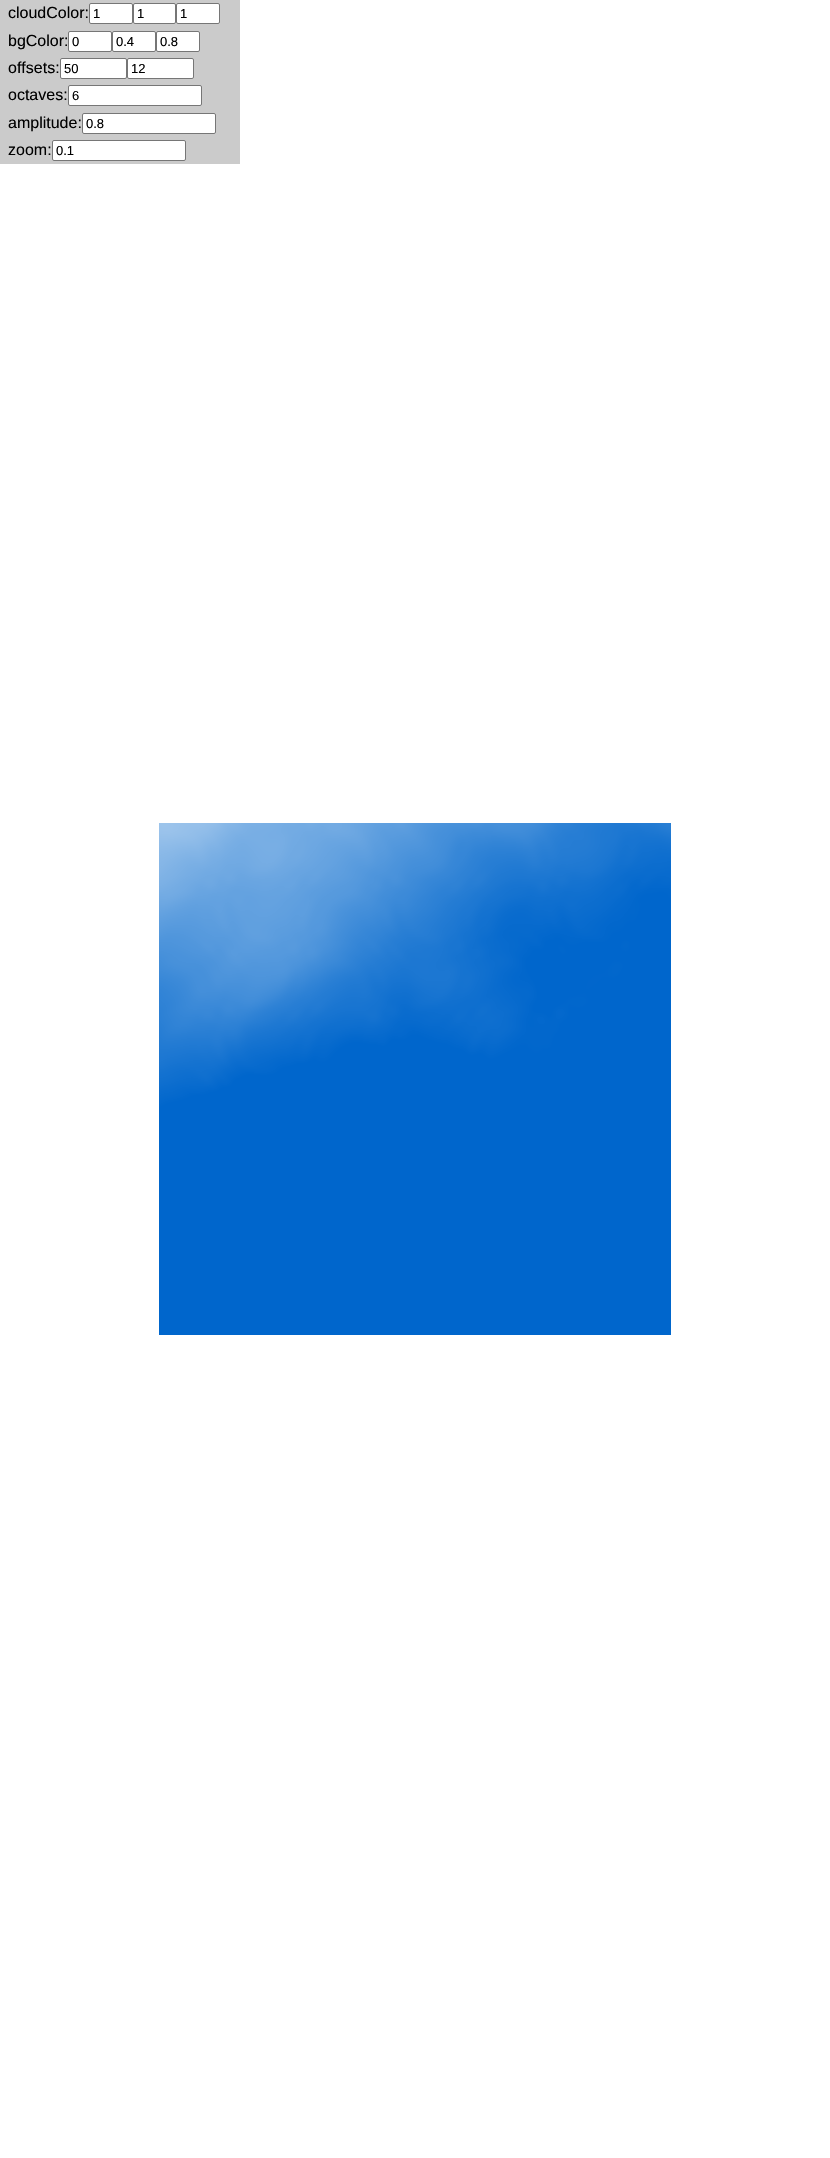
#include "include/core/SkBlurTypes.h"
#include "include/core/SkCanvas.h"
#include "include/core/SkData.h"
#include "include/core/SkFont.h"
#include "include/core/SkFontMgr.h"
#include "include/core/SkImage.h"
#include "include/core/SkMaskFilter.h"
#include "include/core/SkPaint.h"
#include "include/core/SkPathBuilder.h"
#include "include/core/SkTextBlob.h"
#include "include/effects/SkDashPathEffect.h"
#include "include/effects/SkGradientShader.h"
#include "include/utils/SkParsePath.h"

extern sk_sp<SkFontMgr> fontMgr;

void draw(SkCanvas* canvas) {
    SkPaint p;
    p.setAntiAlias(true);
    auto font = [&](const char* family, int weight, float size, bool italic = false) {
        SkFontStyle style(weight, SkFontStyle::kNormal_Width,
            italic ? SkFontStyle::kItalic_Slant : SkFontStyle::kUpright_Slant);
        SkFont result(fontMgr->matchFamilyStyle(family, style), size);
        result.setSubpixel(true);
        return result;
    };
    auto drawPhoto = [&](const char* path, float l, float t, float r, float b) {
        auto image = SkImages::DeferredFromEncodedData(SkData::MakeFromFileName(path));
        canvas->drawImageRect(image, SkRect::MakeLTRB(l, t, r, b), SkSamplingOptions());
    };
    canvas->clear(0xFFFFFFFF);
    p.setColor(0xFFCBCBCB);
    canvas->drawRect(SkRect::MakeLTRB(0, 0, 240, 164), p);
    auto font1 = font("Liberation Sans", 400, 16);
    p.setColor(0xFF000000);
    canvas->drawString("cloudColor:", 8, 18, font1, p);
    p.setColor(0xFFFFFFFF);
    canvas->drawRoundRect(SkRect::MakeLTRB(89.5f, 3.5f, 132.5f, 23.5f), 1.5f, 1.5f, p);
    p.setStyle(SkPaint::kStroke_Style);
    p.setStrokeWidth(1);
    p.setColor(0xFF767676);
    canvas->drawRoundRect(SkRect::MakeLTRB(89.5f, 3.5f, 132.5f, 23.5f), 1.5f, 1.5f, p);
    auto font2 = font("Liberation Sans", 400, 13);
    p.setStyle(SkPaint::kFill_Style);
    p.setColor(0xFF000000);
    canvas->drawString("1", 93, 18, font2, p);
    p.setColor(0xFFFFFFFF);
    canvas->drawRoundRect(SkRect::MakeLTRB(133.5f, 3.5f, 175.5f, 23.5f), 1.5f, 1.5f, p);
    p.setStyle(SkPaint::kStroke_Style);
    p.setColor(0xFF767676);
    canvas->drawRoundRect(SkRect::MakeLTRB(133.5f, 3.5f, 175.5f, 23.5f), 1.5f, 1.5f, p);
    p.setStyle(SkPaint::kFill_Style);
    p.setColor(0xFF000000);
    canvas->drawString("1", 137, 18, font2, p);
    p.setColor(0xFFFFFFFF);
    canvas->drawRoundRect(SkRect::MakeLTRB(176.5f, 3.5f, 219.5f, 23.5f), 1.5f, 1.5f, p);
    p.setStyle(SkPaint::kStroke_Style);
    p.setColor(0xFF767676);
    canvas->drawRoundRect(SkRect::MakeLTRB(176.5f, 3.5f, 219.5f, 23.5f), 1.5f, 1.5f, p);
    p.setStyle(SkPaint::kFill_Style);
    p.setColor(0xFF000000);
    canvas->drawString("1", 180, 18, font2, p);
    canvas->drawString("bgColor:", 8, 46, font1, p);
    p.setColor(0xFFFFFFFF);
    canvas->drawRoundRect(SkRect::MakeLTRB(68.5f, 31.5f, 111.5f, 51.5f), 1.5f, 1.5f, p);
    p.setStyle(SkPaint::kStroke_Style);
    p.setColor(0xFF767676);
    canvas->drawRoundRect(SkRect::MakeLTRB(68.5f, 31.5f, 111.5f, 51.5f), 1.5f, 1.5f, p);
    p.setStyle(SkPaint::kFill_Style);
    p.setColor(0xFF000000);
    canvas->drawString("0", 72, 46, font2, p);
    p.setColor(0xFFFFFFFF);
    canvas->drawRoundRect(SkRect::MakeLTRB(112.5f, 31.5f, 155.5f, 51.5f), 1.5f, 1.5f, p);
    p.setStyle(SkPaint::kStroke_Style);
    p.setColor(0xFF767676);
    canvas->drawRoundRect(SkRect::MakeLTRB(112.5f, 31.5f, 155.5f, 51.5f), 1.5f, 1.5f, p);
    p.setStyle(SkPaint::kFill_Style);
    p.setColor(0xFF000000);
    canvas->drawString("0.4", 116, 46, font2, p);
    p.setColor(0xFFFFFFFF);
    canvas->drawRoundRect(SkRect::MakeLTRB(156.5f, 31.5f, 199.5f, 51.5f), 1.5f, 1.5f, p);
    p.setStyle(SkPaint::kStroke_Style);
    p.setColor(0xFF767676);
    canvas->drawRoundRect(SkRect::MakeLTRB(156.5f, 31.5f, 199.5f, 51.5f), 1.5f, 1.5f, p);
    p.setStyle(SkPaint::kFill_Style);
    p.setColor(0xFF000000);
    canvas->drawString("0.8", 160, 46, font2, p);
    canvas->drawString("offsets:", 8, 73, font1, p);
    p.setColor(0xFFFFFFFF);
    canvas->drawRoundRect(SkRect::MakeLTRB(60.5f, 58.5f, 126.5f, 78.5f), 1.5f, 1.5f, p);
    p.setStyle(SkPaint::kStroke_Style);
    p.setColor(0xFF767676);
    canvas->drawRoundRect(SkRect::MakeLTRB(60.5f, 58.5f, 126.5f, 78.5f), 1.5f, 1.5f, p);
    p.setStyle(SkPaint::kFill_Style);
    p.setColor(0xFF000000);
    canvas->drawString("50", 64, 73, font2, p);
    p.setColor(0xFFFFFFFF);
    canvas->drawRoundRect(SkRect::MakeLTRB(127.5f, 58.5f, 193.5f, 78.5f), 1.5f, 1.5f, p);
    p.setStyle(SkPaint::kStroke_Style);
    p.setColor(0xFF767676);
    canvas->drawRoundRect(SkRect::MakeLTRB(127.5f, 58.5f, 193.5f, 78.5f), 1.5f, 1.5f, p);
    p.setStyle(SkPaint::kFill_Style);
    p.setColor(0xFF000000);
    canvas->drawString("12", 131, 73, font2, p);
    canvas->drawString("octaves:", 8, 100, font1, p);
    p.setColor(0xFFFFFFFF);
    canvas->drawRoundRect(SkRect::MakeLTRB(68.5f, 85.5f, 201.5f, 105.5f), 1.5f, 1.5f, p);
    p.setStyle(SkPaint::kStroke_Style);
    p.setColor(0xFF767676);
    canvas->drawRoundRect(SkRect::MakeLTRB(68.5f, 85.5f, 201.5f, 105.5f), 1.5f, 1.5f, p);
    p.setStyle(SkPaint::kFill_Style);
    p.setColor(0xFF000000);
    canvas->drawString("6", 72, 100, font2, p);
    canvas->drawString("amplitude:", 8, 128, font1, p);
    p.setColor(0xFFFFFFFF);
    canvas->drawRoundRect(SkRect::MakeLTRB(82.5f, 113.5f, 215.5f, 133.5f), 1.5f, 1.5f, p);
    p.setStyle(SkPaint::kStroke_Style);
    p.setColor(0xFF767676);
    canvas->drawRoundRect(SkRect::MakeLTRB(82.5f, 113.5f, 215.5f, 133.5f), 1.5f, 1.5f, p);
    p.setStyle(SkPaint::kFill_Style);
    p.setColor(0xFF000000);
    canvas->drawString("0.8", 86, 128, font2, p);
    canvas->drawString("zoom:", 8, 155, font1, p);
    p.setColor(0xFFFFFFFF);
    canvas->drawRoundRect(SkRect::MakeLTRB(52.5f, 140.5f, 185.5f, 160.5f), 1.5f, 1.5f, p);
    p.setStyle(SkPaint::kStroke_Style);
    p.setColor(0xFF767676);
    canvas->drawRoundRect(SkRect::MakeLTRB(52.5f, 140.5f, 185.5f, 160.5f), 1.5f, 1.5f, p);
    p.setStyle(SkPaint::kFill_Style);
    p.setColor(0xFF000000);
    canvas->drawString("0.1", 56, 155, font2, p);
    drawPhoto("media/1.png", 159, 823, 671, 1335);
}
